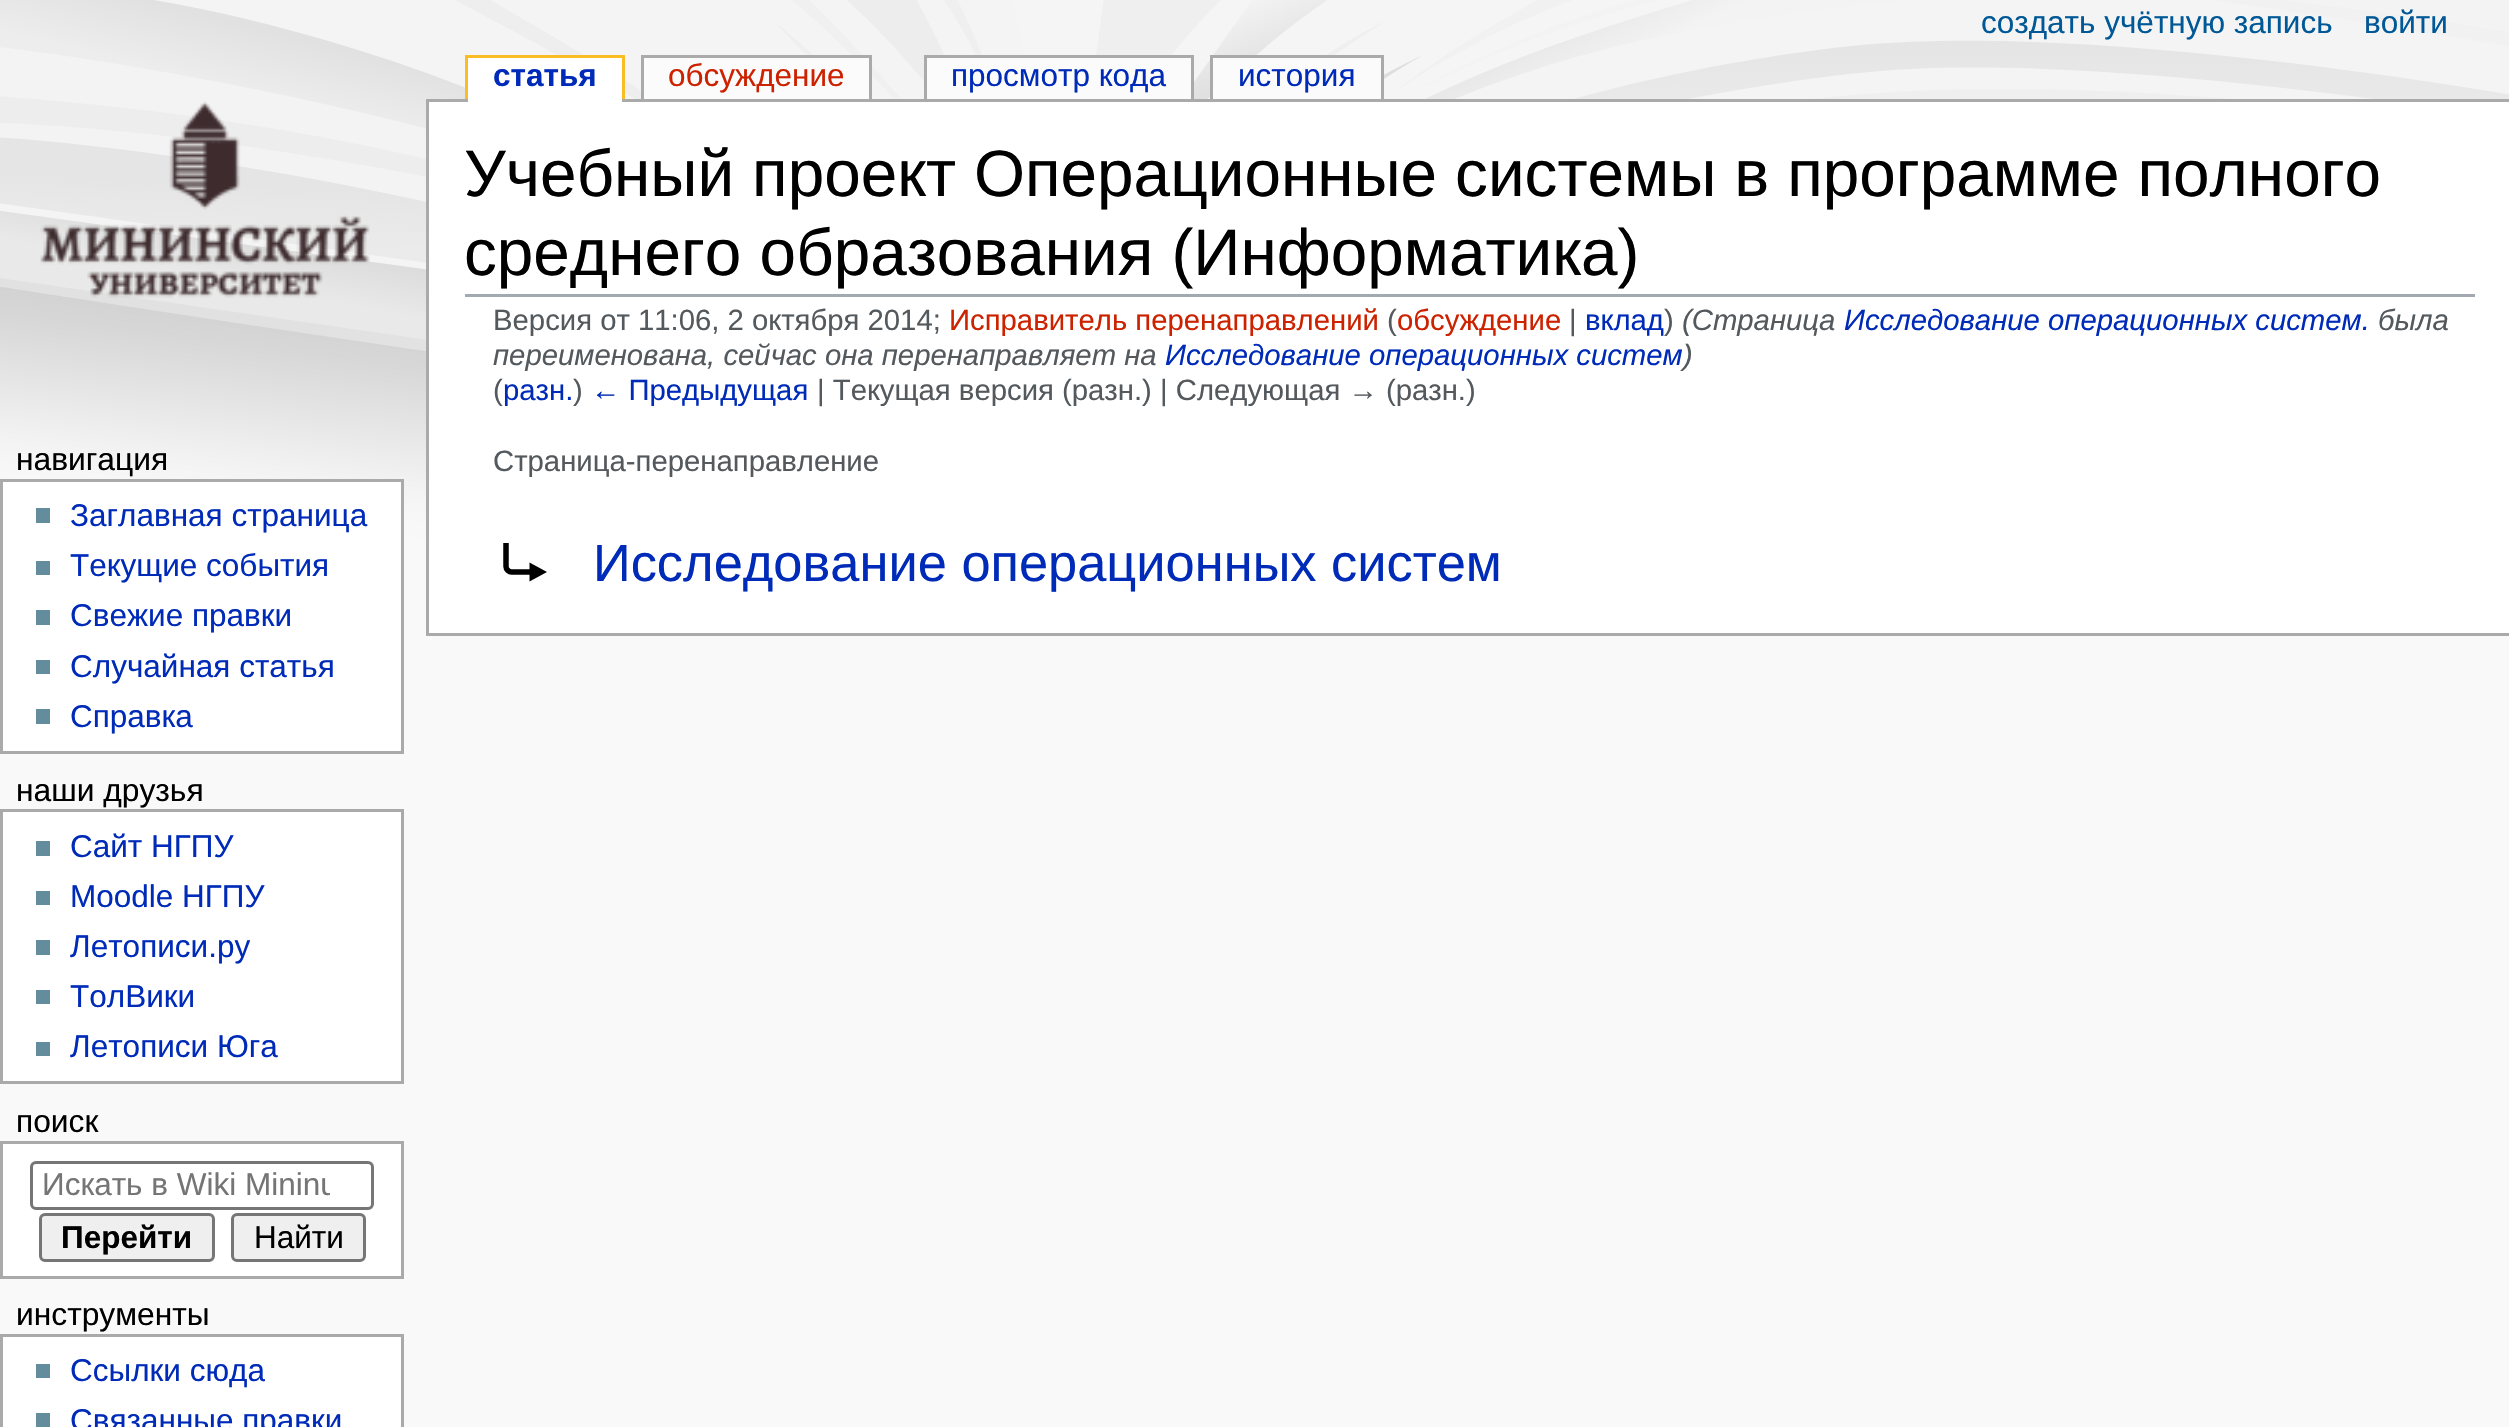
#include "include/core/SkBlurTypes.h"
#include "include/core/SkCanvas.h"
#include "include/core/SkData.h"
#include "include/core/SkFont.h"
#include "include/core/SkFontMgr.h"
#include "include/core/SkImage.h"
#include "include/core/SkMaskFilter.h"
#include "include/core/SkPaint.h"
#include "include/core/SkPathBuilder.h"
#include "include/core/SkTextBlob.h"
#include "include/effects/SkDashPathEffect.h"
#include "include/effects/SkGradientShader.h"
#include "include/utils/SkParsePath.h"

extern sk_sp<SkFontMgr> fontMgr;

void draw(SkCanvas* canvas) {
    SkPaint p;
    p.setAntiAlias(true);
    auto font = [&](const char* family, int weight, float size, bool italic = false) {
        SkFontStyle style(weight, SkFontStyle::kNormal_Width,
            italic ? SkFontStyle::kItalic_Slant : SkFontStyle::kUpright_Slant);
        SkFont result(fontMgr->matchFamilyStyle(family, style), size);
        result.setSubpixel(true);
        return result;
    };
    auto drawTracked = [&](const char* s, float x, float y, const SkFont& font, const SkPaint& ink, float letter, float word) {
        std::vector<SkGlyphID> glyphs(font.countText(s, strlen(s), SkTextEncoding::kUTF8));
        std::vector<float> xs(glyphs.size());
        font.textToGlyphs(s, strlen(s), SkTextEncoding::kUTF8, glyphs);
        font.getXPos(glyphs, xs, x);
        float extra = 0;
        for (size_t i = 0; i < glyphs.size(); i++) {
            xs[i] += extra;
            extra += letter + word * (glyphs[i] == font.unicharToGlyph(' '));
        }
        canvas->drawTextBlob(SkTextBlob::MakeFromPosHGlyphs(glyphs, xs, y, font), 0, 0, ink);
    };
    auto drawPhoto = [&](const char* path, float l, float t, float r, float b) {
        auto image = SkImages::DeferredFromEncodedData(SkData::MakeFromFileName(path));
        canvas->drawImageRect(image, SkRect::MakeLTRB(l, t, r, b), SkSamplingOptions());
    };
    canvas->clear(0xFFF9F9F9);
    drawPhoto("media/1.png", 0, 0, 2509, 577);
    auto font1 = font("Liberation Sans", 400, 31.5f);
    p.setColor(0xFF005896);
    canvas->drawString("создать учётную запись", 1981, 33, font1, p);
    canvas->drawString("войти", 2364, 33, font1, p);
    p.setColor(0xFFAAAAAA);
    canvas->drawRect(SkRect::MakeLTRB(426, 99, 2509, 102), p);
    p.setColor(0xFFFFFFFF);
    canvas->drawRect(SkRect::MakeLTRB(468, 58, 622, 102), p);
    auto font2 = font("Liberation Sans", 700, 31.5f);
    p.setColor(0xFF002BB8);
    canvas->drawString("статья", 493, 86, font2, p);
    {
        const struct { float l, t, r, b; SkColor color; } items[] = {
            {465, 55, 624, 58, 0xFFFABD23},
            {622, 55, 625, 99, 0xFFFABD23},
            {465, 55, 468, 99, 0xFFFABD23},
            {644, 58, 869, 99, 0xFFFBFBFB},
        };
        for (auto [l, t, r, b, color] : items) {
            p.setColor(color);
            canvas->drawRect(SkRect::MakeLTRB(l, t, r, b), p);
        }
    }
    p.setColor(0xFFCC2200);
    canvas->drawString("обсуждение", 668, 86, font1, p);
    {
        const struct { float l, t, r, b; SkColor color; } items[] = {
            {641, 55, 872, 58, 0xFFAAAAAA},
            {869, 55, 872, 99, 0xFFAAAAAA},
            {641, 55, 644, 99, 0xFFAAAAAA},
            {927, 58, 1191, 99, 0xFFFBFBFB},
        };
        for (auto [l, t, r, b, color] : items) {
            p.setColor(color);
            canvas->drawRect(SkRect::MakeLTRB(l, t, r, b), p);
        }
    }
    p.setColor(0xFF002BB8);
    canvas->drawString("просмотр кода", 951, 86, font1, p);
    {
        const struct { float l, t, r, b; SkColor color; } items[] = {
            {924, 55, 1194, 58, 0xFFAAAAAA},
            {1191, 55, 1194, 99, 0xFFAAAAAA},
            {924, 55, 927, 99, 0xFFAAAAAA},
            {1213, 58, 1381, 99, 0xFFFBFBFB},
        };
        for (auto [l, t, r, b, color] : items) {
            p.setColor(color);
            canvas->drawRect(SkRect::MakeLTRB(l, t, r, b), p);
        }
    }
    p.setColor(0xFF002BB8);
    canvas->drawString("история", 1238, 86, font1, p);
    {
        const struct { float l, t, r, b; SkColor color; } items[] = {
            {1210, 55, 1383, 58, 0xFFAAAAAA},
            {1381, 55, 1384, 99, 0xFFAAAAAA},
            {1210, 55, 1213, 99, 0xFFAAAAAA},
        };
        for (auto [l, t, r, b, color] : items) {
            p.setColor(color);
            canvas->drawRect(SkRect::MakeLTRB(l, t, r, b), p);
        }
    }
    drawPhoto("media/2.png", 40, 101, 370, 298);
    auto font3 = font("Liberation Sans", 400, 31.75f);
    p.setColor(0xFF000000);
    canvas->drawString("навигация", 16, 470, font3, p);
    p.setColor(0xFFFFFFFF);
    canvas->drawRect(SkRect::MakeLTRB(1.5f, 480.5f, 402.5f, 752.5f), p);
    p.setStyle(SkPaint::kStroke_Style);
    p.setStrokeWidth(3);
    p.setColor(0xFFAAAAAA);
    canvas->drawRect(SkRect::MakeLTRB(1.5f, 480.5f, 402.5f, 752.5f), p);
    p.setStyle(SkPaint::kFill_Style);
    p.setColor(0xFF638C9C);
    canvas->drawRect(SkRect::MakeLTRB(36, 508, 50, 523), p);
    p.setColor(0xFF002BB8);
    canvas->drawString("Заглавная страница", 70, 526, font1, p);
    p.setColor(0xFF638C9C);
    canvas->drawRect(SkRect::MakeLTRB(36, 561, 50, 575), p);
    p.setColor(0xFF002BB8);
    canvas->drawString("Текущие события", 70, 576, font1, p);
    p.setColor(0xFF638C9C);
    canvas->drawRect(SkRect::MakeLTRB(36, 610, 50, 625), p);
    p.setColor(0xFF002BB8);
    canvas->drawString("Свежие правки", 70, 626, font1, p);
    p.setColor(0xFF638C9C);
    canvas->drawRect(SkRect::MakeLTRB(36, 660, 50, 674), p);
    p.setColor(0xFF002BB8);
    canvas->drawString("Случайная статья", 70, 677, font1, p);
    p.setColor(0xFF638C9C);
    canvas->drawRect(SkRect::MakeLTRB(36, 709, 50, 724), p);
    p.setColor(0xFF002BB8);
    canvas->drawString("Справка", 70, 727, font1, p);
    p.setColor(0xFF000000);
    canvas->drawString("наши друзья", 16, 801, font3, p);
    p.setColor(0xFFFFFFFF);
    canvas->drawRect(SkRect::MakeLTRB(1.5f, 810.5f, 402.5f, 1082.5f), p);
    p.setStyle(SkPaint::kStroke_Style);
    p.setColor(0xFFAAAAAA);
    canvas->drawRect(SkRect::MakeLTRB(1.5f, 810.5f, 402.5f, 1082.5f), p);
    p.setStyle(SkPaint::kFill_Style);
    p.setColor(0xFF638C9C);
    canvas->drawRect(SkRect::MakeLTRB(36, 841, 50, 856), p);
    p.setColor(0xFF002BB8);
    canvas->drawString("Cайт НГПУ", 70, 857, font1, p);
    p.setColor(0xFF638C9C);
    canvas->drawRect(SkRect::MakeLTRB(36, 891, 50, 905), p);
    p.setColor(0xFF002BB8);
    canvas->drawString("Moodle НГПУ", 70, 907, font1, p);
    p.setColor(0xFF638C9C);
    canvas->drawRect(SkRect::MakeLTRB(36, 940, 50, 955), p);
    p.setColor(0xFF002BB8);
    canvas->drawString("Летописи.ру", 70, 957, font1, p);
    p.setColor(0xFF638C9C);
    canvas->drawRect(SkRect::MakeLTRB(36, 990, 50, 1004), p);
    p.setColor(0xFF002BB8);
    canvas->drawString("ТолВики", 70, 1007, font1, p);
    p.setColor(0xFF638C9C);
    canvas->drawRect(SkRect::MakeLTRB(36, 1042, 50, 1056), p);
    p.setColor(0xFF002BB8);
    canvas->drawString("Летописи Юга", 70, 1057, font1, p);
    p.setColor(0xFF000000);
    canvas->drawString("поиск", 16, 1132, font3, p);
    p.setColor(0xFFFFFFFF);
    canvas->drawRect(SkRect::MakeLTRB(1.5f, 1142.5f, 402.5f, 1277.5f), p);
    p.setStyle(SkPaint::kStroke_Style);
    p.setColor(0xFFAAAAAA);
    canvas->drawRect(SkRect::MakeLTRB(1.5f, 1142.5f, 402.5f, 1277.5f), p);
    p.setColor(0xFF767676);
    canvas->drawRoundRect(SkRect::MakeLTRB(31.5f, 1162.5f, 372.5f, 1208.5f), 4.5f, 4.5f, p);
    canvas->save();
    canvas->clipRect(SkRect::MakeLTRB(41, 1169, 330, 1202));
    p.setStyle(SkPaint::kFill_Style);
    p.setColor(0xFF757575);
    canvas->drawString("Искать в Wiki Mininu", 42, 1195, font1, p);
    canvas->restore();
    p.setColor(0xFFEFEFEF);
    canvas->drawRoundRect(SkRect::MakeLTRB(40.5f, 1214.5f, 213.5f, 1260.5f), 4.5f, 4.5f, p);
    p.setStyle(SkPaint::kStroke_Style);
    p.setColor(0xFF767676);
    canvas->drawRoundRect(SkRect::MakeLTRB(40.5f, 1214.5f, 213.5f, 1260.5f), 4.5f, 4.5f, p);
    p.setStyle(SkPaint::kFill_Style);
    p.setColor(0xFF000000);
    canvas->drawString("Перейти", 61, 1248, font2, p);
    p.setColor(0xFFEFEFEF);
    canvas->drawRoundRect(SkRect::MakeLTRB(232.5f, 1214.5f, 364.5f, 1260.5f), 4.5f, 4.5f, p);
    p.setStyle(SkPaint::kStroke_Style);
    p.setColor(0xFF767676);
    canvas->drawRoundRect(SkRect::MakeLTRB(232.5f, 1214.5f, 364.5f, 1260.5f), 4.5f, 4.5f, p);
    p.setStyle(SkPaint::kFill_Style);
    p.setColor(0xFF000000);
    canvas->drawString("Найти", 254, 1248, font1, p);
    canvas->drawString("инструменты", 16, 1325, font3, p);
    p.setColor(0xFFFFFFFF);
    canvas->drawRect(SkRect::MakeLTRB(1.5f, 1335.5f, 402.5f, 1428.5f), p);
    p.setStyle(SkPaint::kStroke_Style);
    p.setColor(0xFFAAAAAA);
    canvas->drawRect(SkRect::MakeLTRB(1.5f, 1335.5f, 402.5f, 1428.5f), p);
    p.setStyle(SkPaint::kFill_Style);
    p.setColor(0xFF638C9C);
    canvas->drawRect(SkRect::MakeLTRB(36, 1364, 50, 1378), p);
    p.setColor(0xFF002BB8);
    canvas->drawString("Ссылки сюда", 70, 1381, font1, p);
    p.setColor(0xFF638C9C);
    canvas->drawRect(SkRect::MakeLTRB(36, 1413, 50, 1427), p);
    p.setColor(0xFF002BB8);
    canvas->drawString("Связанные правки", 70, 1431, font1, p);
    {
        const struct { float l, t, r, b; SkColor color; } items[] = {
            {429, 102, 2509, 633, 0xFFFFFFFF},
            {426, 633, 2509, 636, 0xFFAAAAAA},
            {426, 99, 429, 635, 0xFFAAAAAA},
            {465, 294, 2475, 297, 0xFFA2A9B1},
        };
        for (auto [l, t, r, b, color] : items) {
            p.setColor(color);
            canvas->drawRect(SkRect::MakeLTRB(l, t, r, b), p);
        }
    }
    auto font4 = font("Liberation Sans", 400, 65.65f);
    p.setColor(0xFF000000);
    drawTracked("Учебный проект Операционные системы в программе полного", 464, 196, font4, p, 0, -0.25f);
    canvas->drawString("среднего образования (Информатика)", 464, 275, font4, p);
    auto font5 = font("Liberation Sans", 400, 29.3f);
    p.setColor(0xFF54595D);
    canvas->drawString("Версия от 11:06, 2 октября 2014;", 493, 330, font5, p);
    p.setColor(0xFFCC2200);
    canvas->drawString("Исправитель перенаправлений", 949, 330, font5, p);
    p.setColor(0xFF54595D);
    canvas->drawString("(", 1387, 330, font5, p);
    p.setColor(0xFFCC2200);
    canvas->drawString("обсуждение", 1397, 330, font5, p);
    p.setColor(0xFF54595D);
    canvas->drawString("|", 1569, 330, font5, p);
    p.setColor(0xFF002BB8);
    canvas->drawString("вклад", 1585, 330, font5, p);
    p.setColor(0xFF54595D);
    canvas->drawString(")", 1664, 330, font5, p);
    auto font6 = font("Liberation Sans", 400, 29.3f, true);
    canvas->drawString("(Страница", 1682, 330, font6, p);
    p.setColor(0xFF002BB8);
    canvas->drawString("Исследование операционных систем.", 1844, 330, font6, p);
    p.setColor(0xFF54595D);
    canvas->drawString("была", 2378, 330, font6, p);
    canvas->drawString("переименована, сейчас она перенаправляет на", 493, 365, font6, p);
    p.setColor(0xFF002BB8);
    canvas->drawString("Исследование операционных систем", 1165, 365, font6, p);
    p.setColor(0xFF54595D);
    canvas->drawString(")", 1683, 365, font6, p);
    canvas->drawString("(", 493, 400, font5, p);
    p.setColor(0xFF002BB8);
    canvas->drawString("разн.", 503, 400, font5, p);
    p.setColor(0xFF54595D);
    canvas->drawString(")", 573, 400, font5, p);
    p.setColor(0xFF002BB8);
    canvas->drawString("← Предыдущая", 591, 400, font5, p);
    p.setColor(0xFF54595D);
    canvas->drawString("| Текущая версия (разн.) | Следующая → (разн.)", 817, 400, font5, p);
    canvas->drawString("Страница-перенаправление", 493, 471, font5, p);
    auto font7 = font("Liberation Sans", 400, 52.4f);
    p.setColor(0xFF002BB8);
    canvas->drawString("Исследование операционных систем", 593, 581, font7, p);
    p.setStyle(SkPaint::kStroke_Style);
    p.setStrokeWidth(5.5f);
    p.setColor(0xFF000000);
    canvas->drawPath(SkPathBuilder().moveTo(506, 543).lineTo(506, 566.5f).cubicTo(506, 569.5f, 509, 572, 511.5f, 572).lineTo(536, 572).detach(), p);
    p.setStyle(SkPaint::kFill_Style);
    canvas->drawPath(SkPathBuilder().moveTo(529.5f, 562.5f).lineTo(529.5f, 581.5f).lineTo(547, 572).close().detach(), p);
}
